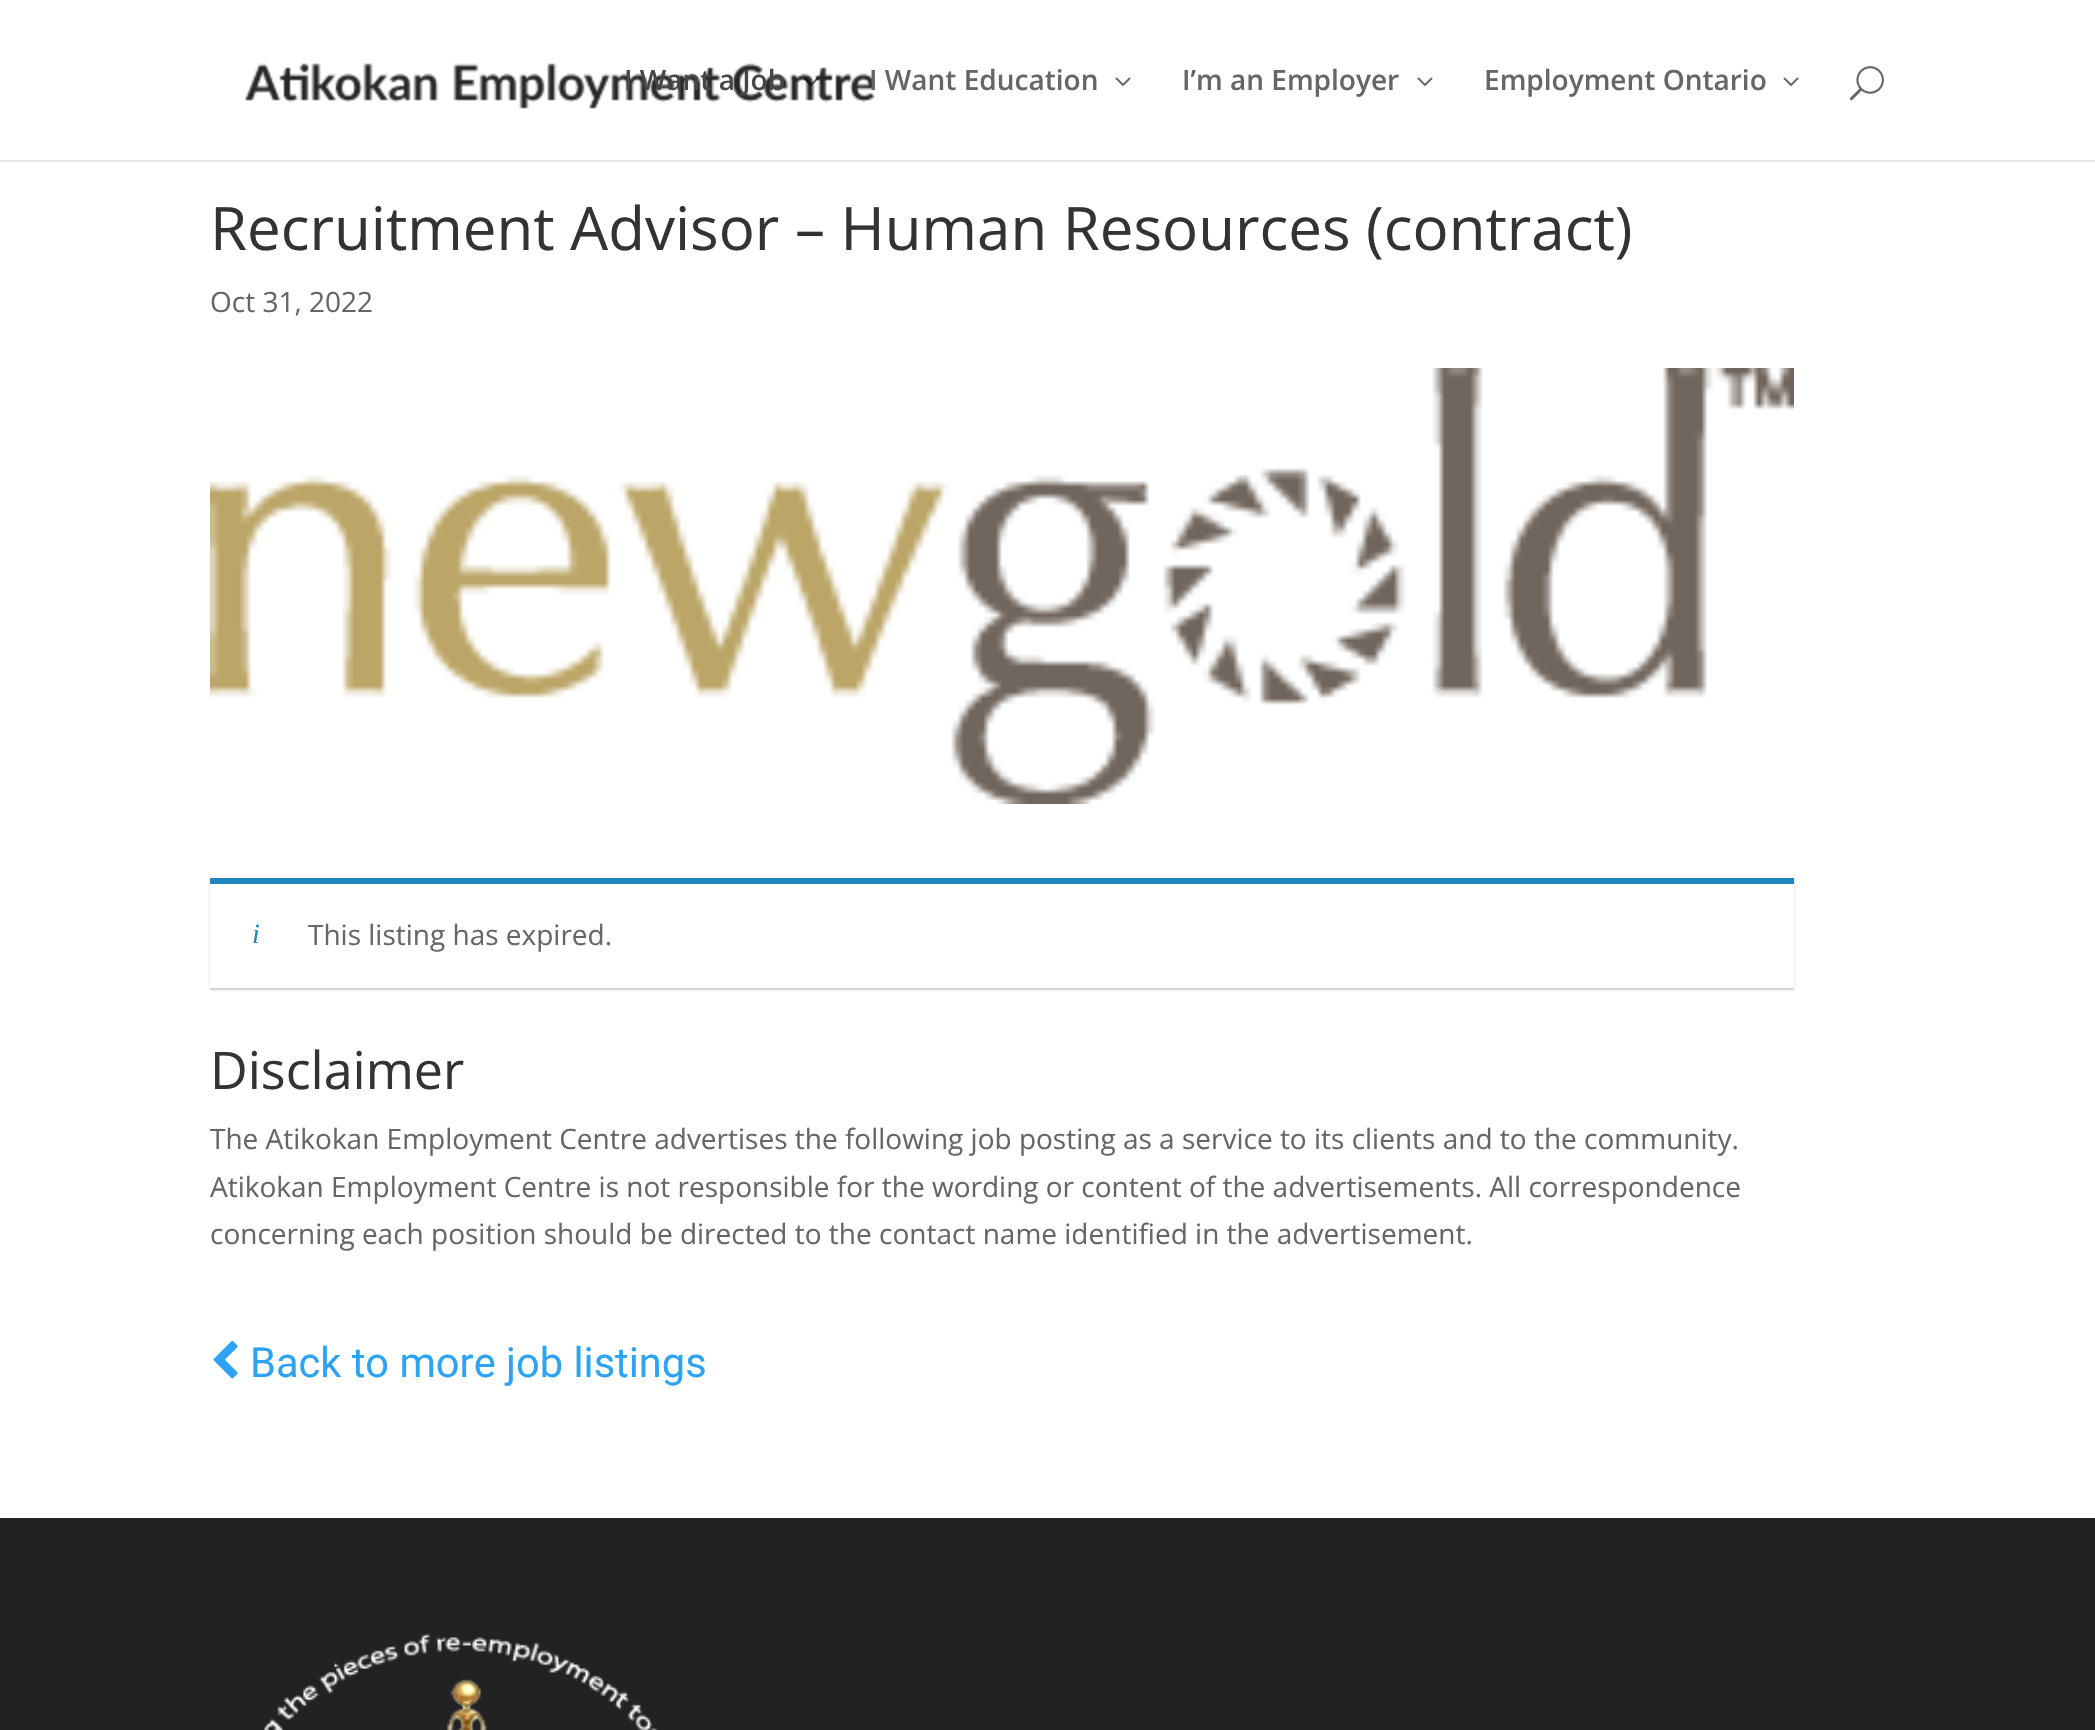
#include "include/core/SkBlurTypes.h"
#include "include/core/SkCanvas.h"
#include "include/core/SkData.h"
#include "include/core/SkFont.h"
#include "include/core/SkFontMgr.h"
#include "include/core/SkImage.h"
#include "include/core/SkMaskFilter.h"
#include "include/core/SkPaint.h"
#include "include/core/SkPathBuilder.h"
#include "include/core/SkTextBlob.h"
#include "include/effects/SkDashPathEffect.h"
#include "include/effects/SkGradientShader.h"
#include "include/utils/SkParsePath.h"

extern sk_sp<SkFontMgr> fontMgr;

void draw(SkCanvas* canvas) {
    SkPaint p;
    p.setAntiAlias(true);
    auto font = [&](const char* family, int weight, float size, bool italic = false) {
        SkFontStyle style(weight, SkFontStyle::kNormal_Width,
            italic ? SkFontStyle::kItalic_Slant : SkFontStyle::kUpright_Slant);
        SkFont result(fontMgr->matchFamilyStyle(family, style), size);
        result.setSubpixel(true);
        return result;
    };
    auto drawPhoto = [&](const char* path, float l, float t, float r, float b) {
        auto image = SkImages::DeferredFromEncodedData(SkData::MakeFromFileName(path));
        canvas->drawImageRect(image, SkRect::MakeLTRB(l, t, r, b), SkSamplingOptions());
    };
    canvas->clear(0xFFFFFFFF);
    p.setColor(0xFFE6E6E6);
    canvas->drawRect(SkRect::MakeLTRB(0, 160, 2095, 162), p);
    drawPhoto("media/1.png", 244, 63, 875, 109);
    auto font1 = font("Open Sans", 600, 28);
    p.setColor(0xFF464646);
    canvas->drawString("I Want a Job", 624, 90, font1, p);
    drawPhoto("media/2.png", 803, 77, 819, 86);
    p.setColor(0xFF666666);
    canvas->drawString("I Want Education", 869, 90, font1, p);
    drawPhoto("media/3.png", 1115, 77, 1131, 86);
    canvas->drawString("I’m an Employer", 1182, 90, font1, p);
    drawPhoto("media/3.png", 1417, 77, 1433, 86);
    canvas->drawString("Employment Ontario", 1484, 90, font1, p);
    drawPhoto("media/3.png", 1783, 77, 1799, 86);
    drawPhoto("media/4.png", 1849, 66, 1884, 101);
    auto font2 = font("Open Sans", 400, 60);
    p.setColor(0xFF333333);
    canvas->drawString("Recruitment Advisor – Human Resources (contract)", 210, 250, font2, p);
    auto font3 = font("Open Sans", 400, 28);
    p.setColor(0xFF666666);
    canvas->drawString("Oct 31, 2022", 210, 312, font3, p);
    drawPhoto("media/5.png", 210, 368, 1794, 804);
    canvas->save();
    canvas->clipPath(SkPathBuilder(SkPathFillType::kEvenOdd).moveTo(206, 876).lineTo(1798, 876).lineTo(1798, 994).lineTo(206, 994).close().moveTo(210, 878).lineTo(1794, 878).lineTo(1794, 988).lineTo(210, 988).close().detach(), true);
    p.setColor(0x33000000);
    p.setMaskFilter(SkMaskFilter::MakeBlur(kNormal_SkBlurStyle, 1));
    canvas->drawRect(SkRect::MakeLTRB(210, 880, 1794, 990), p);
    p.setMaskFilter(nullptr);
    canvas->restore();
    p.setColor(0xFF1E85BE);
    canvas->drawRect(SkRect::MakeLTRB(210, 878, 1794, 884), p);
    auto font4 = font("Liberation Serif", 400, 28, true);
    canvas->drawString("i", 252, 943, font4, p);
    p.setColor(0xFF666666);
    canvas->drawString("This listing has expired.", 308, 945, font3, p);
    auto font5 = font("Open Sans", 400, 52);
    p.setColor(0xFF333333);
    canvas->drawString("Disclaimer", 210, 1089, font5, p);
    p.setColor(0xFF666666);
    {
        const struct { const char* s; float x, y; } items[] = {
            {"The Atikokan Employment Centre advertises the following job posting as a service to its clients and to the community.", 210, 1149},
            {"Atikokan Employment Centre is not responsible for the wording or content of the advertisements. All correspondence", 210, 1197},
            {"concerning each position should be directed to the contact name identified in the advertisement.", 210, 1244},
        };
        for (auto [s, x, y] : items) {
            canvas->drawString(s, x, y, font3, p);
        }
    }
    drawPhoto("media/6.png", 213, 1341, 238, 1379);
    auto font6 = font("Roboto", 400, 41.6f);
    p.setColor(0xFF2EA3F2);
    canvas->drawString("Back to more job listings", 250, 1377, font6, p);
    p.setColor(0xFF222222);
    canvas->drawRect(SkRect::MakeLTRB(0, 1518, 2095, 1730), p);
    drawPhoto("media/7.png", 264, 1633, 658, 1730);
}
